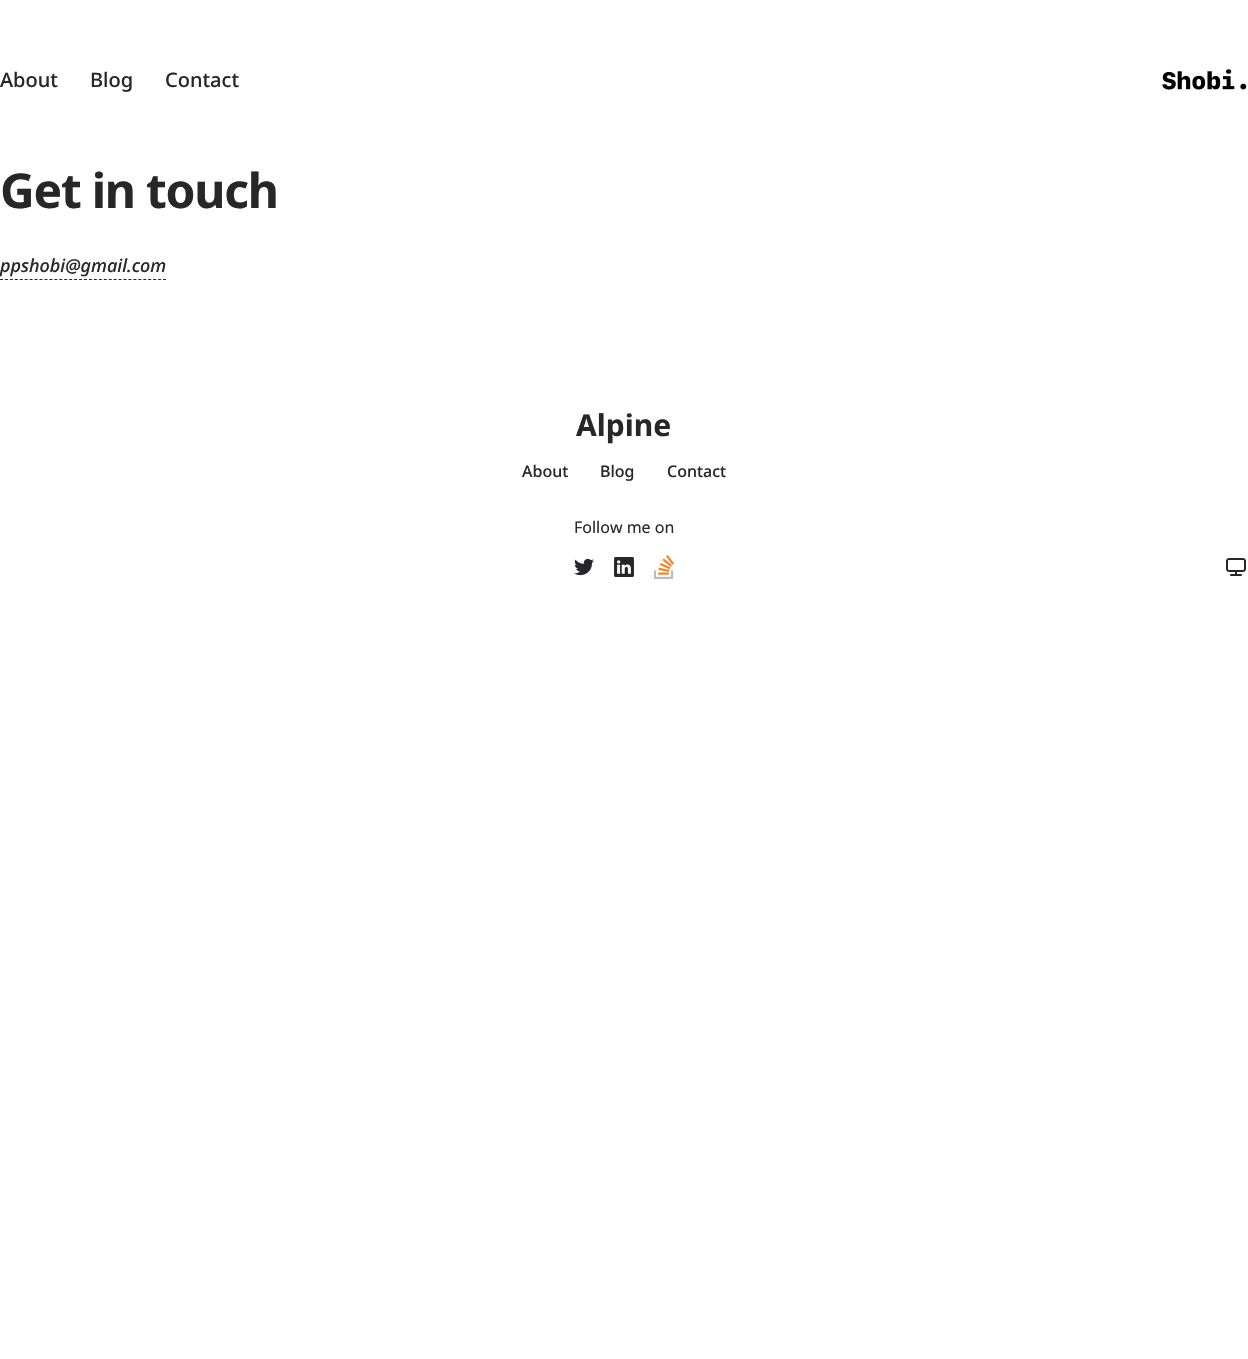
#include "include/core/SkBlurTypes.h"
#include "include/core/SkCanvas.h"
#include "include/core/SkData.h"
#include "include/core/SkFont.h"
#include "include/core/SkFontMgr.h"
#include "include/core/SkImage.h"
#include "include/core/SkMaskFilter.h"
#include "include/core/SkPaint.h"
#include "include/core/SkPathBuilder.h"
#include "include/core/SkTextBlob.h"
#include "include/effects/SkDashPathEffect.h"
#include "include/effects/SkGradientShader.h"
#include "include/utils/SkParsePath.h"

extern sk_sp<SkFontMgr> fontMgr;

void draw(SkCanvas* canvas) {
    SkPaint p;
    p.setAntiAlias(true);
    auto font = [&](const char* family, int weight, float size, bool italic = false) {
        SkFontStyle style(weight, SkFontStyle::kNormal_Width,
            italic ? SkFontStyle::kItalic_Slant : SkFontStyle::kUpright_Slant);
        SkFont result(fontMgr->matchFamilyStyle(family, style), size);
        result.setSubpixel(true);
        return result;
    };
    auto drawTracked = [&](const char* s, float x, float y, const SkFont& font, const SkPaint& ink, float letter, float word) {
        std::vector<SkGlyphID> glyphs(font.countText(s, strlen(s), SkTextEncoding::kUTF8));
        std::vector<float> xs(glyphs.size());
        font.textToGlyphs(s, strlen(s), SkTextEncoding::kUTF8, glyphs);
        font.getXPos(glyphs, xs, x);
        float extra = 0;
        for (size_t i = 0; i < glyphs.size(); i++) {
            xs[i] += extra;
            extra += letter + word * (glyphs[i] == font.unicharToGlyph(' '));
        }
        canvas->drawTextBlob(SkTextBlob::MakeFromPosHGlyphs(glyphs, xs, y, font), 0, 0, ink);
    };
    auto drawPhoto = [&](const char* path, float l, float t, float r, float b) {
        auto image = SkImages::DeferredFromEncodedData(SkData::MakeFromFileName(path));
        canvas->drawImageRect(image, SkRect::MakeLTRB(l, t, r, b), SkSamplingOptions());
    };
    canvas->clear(0xFFFFFFFF);
    auto font1 = font("Noto Sans", 500, 20);
    p.setColor(0xFF27272A);
    {
        const struct { const char* s; float x, y; } items[] = {
            {"About", 0, 87},
            {"Blog", 90, 87},
            {"Contact", 165, 87},
        };
        for (auto [s, x, y] : items) {
            canvas->drawString(s, x, y, font1, p);
        }
    }
    drawPhoto("media/1.png", 1162, 69, 1247, 90);
    auto font2 = font("Noto Sans", 700, 48);
    drawTracked("Get in touch", 0, 208, font2, p, -1.25f, 0);
    auto font3 = font("Noto Sans", 500, 18, true);
    canvas->drawString("ppshobi@gmail.com", 0, 272, font3, p);
    p.setStyle(SkPaint::kStroke_Style);
    p.setStrokeWidth(1);
    p.setPathEffect(SkDashPathEffect::Make({{3, 1.94f}}, 0));
    canvas->drawPath(SkPathBuilder().moveTo(0, 279.5f).lineTo(166, 279.5f).detach(), p);
    p.setPathEffect(nullptr);
    auto font4 = font("Noto Sans", 700, 30);
    p.setStyle(SkPaint::kFill_Style);
    canvas->drawString("Alpine", 576, 436, font4, p);
    auto font5 = font("Noto Sans", 500, 16);
    {
        const struct { const char* s; float x, y; } items[] = {
            {"About", 522, 477},
            {"Blog", 600, 477},
            {"Contact", 667, 477},
        };
        for (auto [s, x, y] : items) {
            canvas->drawString(s, x, y, font5, p);
        }
    }
    auto font6 = font("Noto Sans", 400, 16);
    canvas->drawString("Follow me on", 574, 533, font6, p);
    drawPhoto("media/2.png", 574, 558, 594, 576);
    drawPhoto("media/3.png", 614, 557, 634, 577);
    drawPhoto("media/4.png", 653, 555, 674, 579);
    drawPhoto("media/5.png", 1226, 558, 1246, 576);
}
